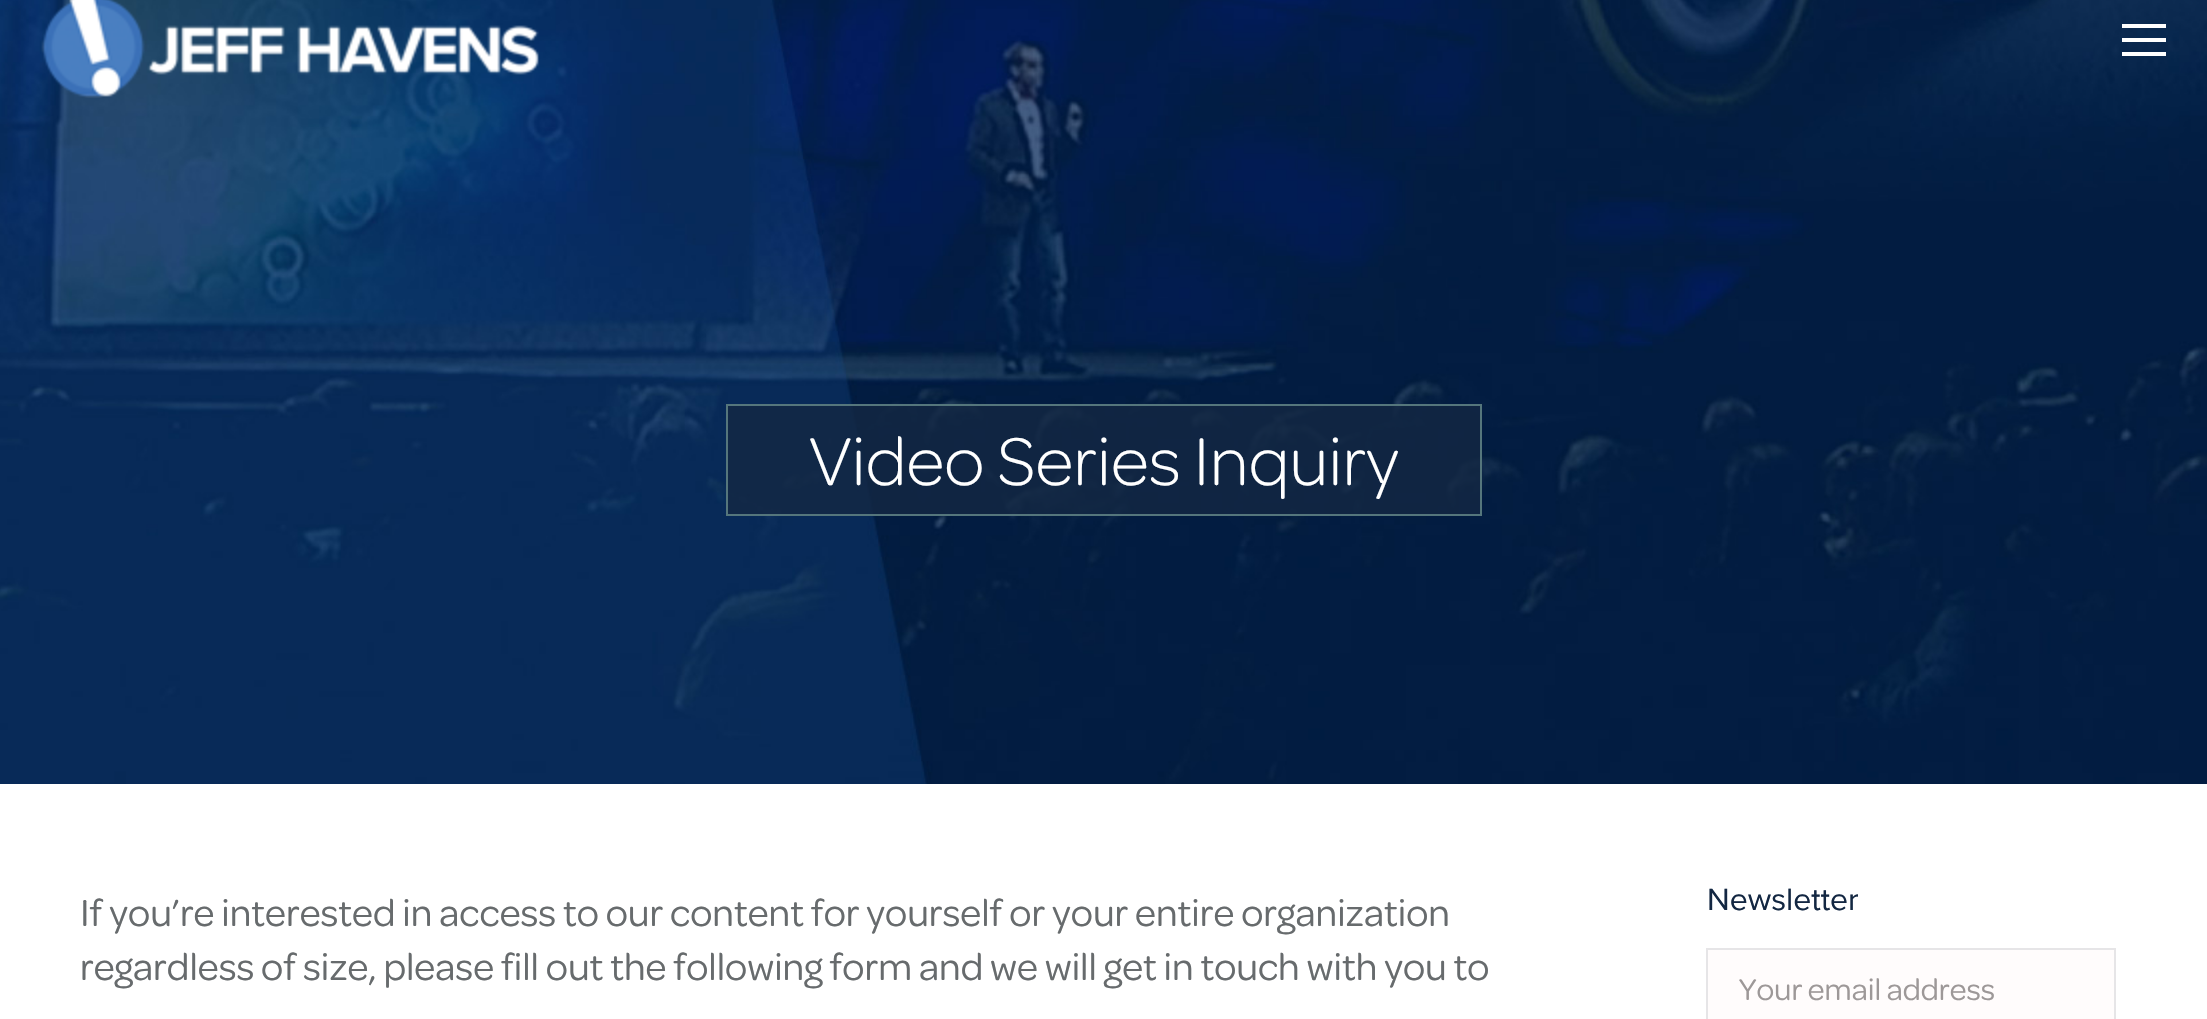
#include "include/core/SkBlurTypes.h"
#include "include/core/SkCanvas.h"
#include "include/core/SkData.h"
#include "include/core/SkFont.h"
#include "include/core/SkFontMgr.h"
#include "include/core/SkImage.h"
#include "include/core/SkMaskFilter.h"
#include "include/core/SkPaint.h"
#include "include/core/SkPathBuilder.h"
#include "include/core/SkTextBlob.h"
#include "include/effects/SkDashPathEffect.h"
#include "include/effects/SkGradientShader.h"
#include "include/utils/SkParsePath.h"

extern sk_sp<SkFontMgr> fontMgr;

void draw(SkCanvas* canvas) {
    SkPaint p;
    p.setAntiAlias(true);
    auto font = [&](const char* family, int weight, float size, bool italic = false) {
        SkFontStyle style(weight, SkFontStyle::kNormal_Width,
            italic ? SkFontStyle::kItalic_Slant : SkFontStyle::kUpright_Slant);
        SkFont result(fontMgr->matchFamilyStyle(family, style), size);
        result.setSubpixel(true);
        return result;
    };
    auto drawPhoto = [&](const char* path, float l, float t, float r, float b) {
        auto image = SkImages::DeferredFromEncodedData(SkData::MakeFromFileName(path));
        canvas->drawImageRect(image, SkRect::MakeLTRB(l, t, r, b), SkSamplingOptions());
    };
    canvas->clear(0xFFFFFFFF);
    drawPhoto("media/2.png", 0, 0, 2207, 784);
    drawPhoto("media/1.png", 41, 0, 539, 98);
    {
        const struct { float l, t, r, b; SkColor color; } items[] = {
            {2122, 24, 2166, 28, 0xFFFFFFFF},
            {2122, 38, 2166, 42, 0xFFFFFFFF},
            {2122, 52, 2166, 56, 0xFFFFFFFF},
        };
        for (auto [l, t, r, b, color] : items) {
            p.setColor(color);
            canvas->drawRect(SkRect::MakeLTRB(l, t, r, b), p);
        }
    }
    p.setColor(0xCC132742);
    canvas->drawRect(SkRect::MakeLTRB(727, 405, 1481, 515), p);
    p.setStyle(SkPaint::kStroke_Style);
    p.setStrokeWidth(2);
    p.setColor(0xFF55767C);
    canvas->drawRect(SkRect::MakeLTRB(727, 405, 1481, 515), p);
    auto font1 = font("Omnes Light", 300, 72);
    p.setStyle(SkPaint::kFill_Style);
    p.setColor(0xFFFFFFFF);
    canvas->drawString("Video Series Inquiry", 809, 485, font1, p);
    auto font2 = font("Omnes", 400, 40);
    p.setColor(0xFF676B6D);
    canvas->drawString("If you’re interested in access to our content for yourself or your entire organization", 80, 926, font2, p);
    canvas->drawString("regardless of size, please fill out the following form and we will get in touch with you to", 80, 980, font2, p);
    auto font3 = font("Proxima Nova", 400, 32);
    p.setColor(0xFF132742);
    canvas->drawString("Newsletter", 1707, 910, font3, p);
    p.setColor(0xFFFFFCFC);
    canvas->drawRect(SkRect::MakeLTRB(1707, 949, 2115, 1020), p);
    p.setStyle(SkPaint::kStroke_Style);
    p.setColor(0xFFE6E5E7);
    canvas->drawRect(SkRect::MakeLTRB(1707, 949, 2115, 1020), p);
    auto font4 = font("Omnes", 400, 32);
    p.setStyle(SkPaint::kFill_Style);
    p.setColor(0xFF9D9898);
    canvas->drawString("Your email address", 1739, 1000, font4, p);
}
